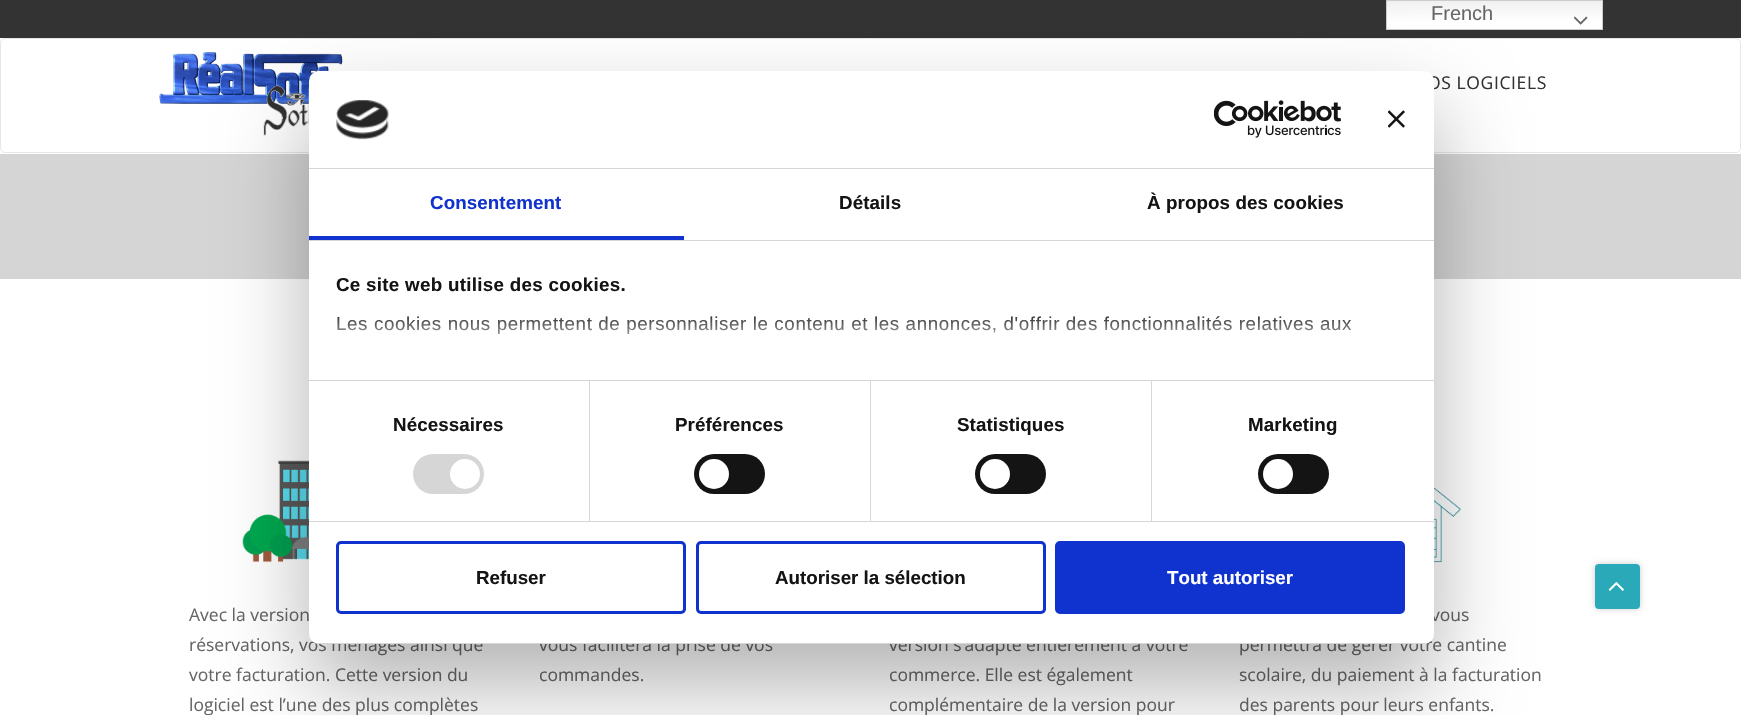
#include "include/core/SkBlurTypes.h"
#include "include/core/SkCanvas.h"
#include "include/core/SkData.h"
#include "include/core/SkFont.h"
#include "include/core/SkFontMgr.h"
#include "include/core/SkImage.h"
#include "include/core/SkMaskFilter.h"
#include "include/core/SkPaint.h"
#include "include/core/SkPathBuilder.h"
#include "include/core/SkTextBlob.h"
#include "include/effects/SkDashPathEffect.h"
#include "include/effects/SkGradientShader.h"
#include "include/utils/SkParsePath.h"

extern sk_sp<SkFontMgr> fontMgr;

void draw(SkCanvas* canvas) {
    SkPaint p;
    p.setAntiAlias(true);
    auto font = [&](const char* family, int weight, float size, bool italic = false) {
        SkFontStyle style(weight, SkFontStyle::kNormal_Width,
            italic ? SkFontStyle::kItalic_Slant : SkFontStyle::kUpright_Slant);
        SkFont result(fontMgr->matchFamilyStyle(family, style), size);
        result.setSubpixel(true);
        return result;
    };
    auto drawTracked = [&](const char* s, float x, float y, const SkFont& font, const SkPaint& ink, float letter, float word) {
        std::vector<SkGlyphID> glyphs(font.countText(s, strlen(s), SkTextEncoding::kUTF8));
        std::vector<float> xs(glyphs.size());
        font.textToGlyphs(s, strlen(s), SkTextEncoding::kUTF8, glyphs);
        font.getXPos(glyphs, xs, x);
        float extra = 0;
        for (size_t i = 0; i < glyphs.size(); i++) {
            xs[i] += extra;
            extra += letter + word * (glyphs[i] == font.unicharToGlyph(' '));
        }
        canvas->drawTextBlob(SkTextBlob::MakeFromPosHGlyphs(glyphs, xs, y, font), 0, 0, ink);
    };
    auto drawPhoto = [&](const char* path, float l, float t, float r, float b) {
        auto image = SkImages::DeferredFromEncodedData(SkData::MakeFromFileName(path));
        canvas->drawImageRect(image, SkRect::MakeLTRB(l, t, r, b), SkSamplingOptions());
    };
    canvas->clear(0xFFFFFFFF);
    p.setColor(0xFF333333);
    canvas->drawRect(SkRect::MakeLTRB(0, 0, 1741, 38), p);
    {
        const SkColor colors[] = {0xFFEFEFEF, 0xFFFFFFFF};
        const float stops[] = {0, 0.7f};
        const SkPoint ends[] = {{1494, 0}, {1494, 30}};
        p.setShader(SkGradientShader::MakeLinear(ends, colors, stops, 2, SkTileMode::kClamp));
        p.setAlpha(255);
    }
    canvas->drawRect(SkRect::MakeLTRB(1387, 1, 1602, 29), p);
    p.setStyle(SkPaint::kStroke_Style);
    p.setStrokeWidth(1);
    p.setShader(nullptr);
    p.setColor(0xFFCCCCCC);
    canvas->drawRect(SkRect::MakeLTRB(1386.5f, 0.5f, 1602.5f, 29.5f), p);
    auto font1 = font("Liberation Sans", 400, 20);
    p.setStyle(SkPaint::kFill_Style);
    p.setColor(0xFF666666);
    canvas->drawString("French", 1431, 20, font1, p);
    drawPhoto("media/1.png", 1574, 16, 1588, 25);
    p.setStyle(SkPaint::kStroke_Style);
    p.setColor(0xFFE7E7E7);
    canvas->drawRoundRect(SkRect::MakeLTRB(0.5f, 38.5f, 1740.5f, 152.5f), 4.5f, 4.5f, p);
    drawPhoto("media/2.png", 159, 52, 343, 136);
    auto font2 = font("Open Sans", 400, 17.5f);
    p.setStyle(SkPaint::kFill_Style);
    p.setColor(0xFF333333);
    drawTracked("OS LOGICIELS", 1427, 89, font2, p, 0.62f, 0);
    p.setColor(0xFFD5D5D5);
    canvas->drawRect(SkRect::MakeLTRB(0, 154, 1741, 279), p);
    drawPhoto("media/3.png", 242, 460, 309, 563);
    p.setColor(0xFF666666);
    {
        const struct { const char* s; float x, y; } items[] = {
            {"Avec la version", 189, 621},
            {"réservations, vos ménages ainsi que", 189, 651},
            {"votre facturation. Cette version du", 189, 681},
            {"logiciel est l’une des plus complètes", 189, 711},
            {"vous facilitera la prise de vos", 539, 651},
            {"commandes.", 539, 681},
            {"version s’adapte entièrement à votre", 889, 651},
            {"commerce. Elle est également", 889, 681},
            {"complémentaire de la version pour", 889, 711},
        };
        for (auto [s, x, y] : items) {
            canvas->drawString(s, x, y, font2, p);
        }
    }
    drawPhoto("media/4.png", 1434, 487, 1461, 563);
    {
        const struct { const char* s; float x, y; } items[] = {
            {"vous", 1431, 621},
            {"permettra de gérer votre cantine", 1239, 651},
            {"scolaire, du paiement à la facturation", 1239, 681},
            {"des parents pour leurs enfants.", 1239, 711},
        };
        for (auto [s, x, y] : items) {
            canvas->drawString(s, x, y, font2, p);
        }
    }
    p.setColor(0x4D000000);
    p.setMaskFilter(SkMaskFilter::MakeBlur(kNormal_SkBlurStyle, 42.5f));
    canvas->drawRoundRect(SkRect::MakeLTRB(309, 111, 1434, 684), 10, 10, p);
    p.setMaskFilter(nullptr);
    p.setColor(0xFFFFFFFF);
    canvas->drawRoundRect(SkRect::MakeLTRB(309, 71, 1434, 644), 10, 10, p);
    p.setColor(0xFFD6D6D6);
    canvas->drawRect(SkRect::MakeLTRB(309, 168, 1434, 169), p);
    drawPhoto("media/5.png", 336, 100, 389, 140);
    drawPhoto("media/6.png", 1214, 100, 1341, 138);
    drawPhoto("media/7.png", 1388, 110, 1405, 128);
    canvas->drawRect(SkRect::MakeLTRB(309, 240, 1434, 241), p);
    p.setColor(0xFF1032CF);
    canvas->drawRect(SkRect::MakeLTRB(309, 236, 684, 240), p);
    auto font3 = font("Liberation Sans", 700, 18.75f);
    drawTracked("Consentement", 430, 209, font3, p, 0.1f, 0);
    p.setColor(0xFF141414);
    drawTracked("Détails", 839, 209, font3, p, 0.1f, 0);
    drawTracked("À propos des cookies", 1147, 209, font3, p, 0.1f, 0);
    p.setColor(0xFFD6D6D6);
    canvas->drawRect(SkRect::MakeLTRB(309, 380, 1434, 381), p);
    p.setColor(0xFF141414);
    drawTracked("Ce site web utilise des cookies.", 336, 291, font3, p, 0.3f, 0);
    auto font4 = font("Liberation Sans", 400, 18.75f);
    drawTracked("Les cookies nous permettent de personnaliser le contenu et les annonces, d'offrir des fonctionnalités relatives aux", 336, 330, font4, p, 0.62f, 0);
    {
        const SkColor colors[] = {0xFFFFFFFF, 0xCCFFFFFF, 0x00FFFFFF};
        const float stops[] = {0, 0.5f, 1};
        const SkPoint ends[] = {{858, 380}, {858, 310}};
        p.setShader(SkGradientShader::MakeLinear(ends, colors, stops, 3, SkTileMode::kClamp));
        p.setAlpha(255);
    }
    canvas->drawRect(SkRect::MakeLTRB(337, 316, 1352, 334), p);
    p.setShader(nullptr);
    p.setColor(0xFFD6D6D6);
    canvas->drawRect(SkRect::MakeLTRB(309, 521, 1434, 522), p);
    canvas->drawRect(SkRect::MakeLTRB(589, 381, 590, 521), p);
    p.setColor(0xFF141414);
    drawTracked("Nécessaires", 393, 431, font3, p, 0.1f, 0);
    p.setColor(0xFFD6D6D6);
    canvas->drawRoundRect(SkRect::MakeLTRB(413, 454, 484, 494), 20, 20, p);
    p.setColor(0xFFFFFFFF);
    canvas->drawCircle(465, 474, 15, p);
    p.setColor(0xFFD6D6D6);
    canvas->drawRect(SkRect::MakeLTRB(870, 381, 871, 521), p);
    p.setColor(0xFF141414);
    drawTracked("Préférences", 675, 431, font3, p, 0.1f, 0);
    canvas->drawRoundRect(SkRect::MakeLTRB(694, 454, 765, 494), 20, 20, p);
    p.setColor(0xFFFFFFFF);
    canvas->drawCircle(714, 474, 15, p);
    p.setColor(0xFFD6D6D6);
    canvas->drawRect(SkRect::MakeLTRB(1151, 381, 1152, 521), p);
    p.setColor(0xFF141414);
    drawTracked("Statistiques", 957, 431, font3, p, 0.1f, 0);
    canvas->drawRoundRect(SkRect::MakeLTRB(975, 454, 1046, 494), 20, 20, p);
    p.setColor(0xFFFFFFFF);
    canvas->drawCircle(995, 474, 15, p);
    p.setColor(0xFF141414);
    drawTracked("Marketing", 1248, 431, font3, p, 0.1f, 0);
    canvas->drawRoundRect(SkRect::MakeLTRB(1258, 454, 1329, 494), 20, 20, p);
    p.setColor(0xFFFFFFFF);
    canvas->drawCircle(1278, 474, 15, p);
    canvas->save();
    canvas->clipPath(SkPathBuilder().moveTo(319, 71).lineTo(1424, 71).cubicTo(1429.5f, 71, 1434, 75.5f, 1434, 81).lineTo(1434, 634).cubicTo(1434, 639.5f, 1429.5f, 644, 1424, 644).lineTo(319, 644).cubicTo(313.5f, 644, 309, 639.5f, 309, 634).lineTo(309, 81).cubicTo(309, 75.5f, 313.5f, 71, 319, 71).close().detach(), true);
    p.setColor(0xFFD6D6D6);
    canvas->drawRect(SkRect::MakeLTRB(309, 643, 1434, 644), p);
    canvas->restore();
    p.setStyle(SkPaint::kStroke_Style);
    p.setStrokeWidth(3);
    p.setColor(0xFF1032CF);
    canvas->drawRoundRect(SkRect::MakeLTRB(337.5f, 542.5f, 684.5f, 612.5f), 3.5f, 3.5f, p);
    p.setStyle(SkPaint::kFill_Style);
    p.setColor(0xFF141414);
    canvas->drawString("Refuser", 476, 584, font3, p);
    p.setStyle(SkPaint::kStroke_Style);
    p.setColor(0xFF1032CF);
    canvas->drawRoundRect(SkRect::MakeLTRB(697.5f, 542.5f, 1044.5f, 612.5f), 3.5f, 3.5f, p);
    p.setStyle(SkPaint::kFill_Style);
    p.setColor(0xFF141414);
    canvas->drawString("Autoriser la sélection", 775, 584, font3, p);
    p.setColor(0xFF1032CF);
    canvas->drawRoundRect(SkRect::MakeLTRB(1056.5f, 542.5f, 1403.5f, 612.5f), 3.5f, 3.5f, p);
    p.setStyle(SkPaint::kStroke_Style);
    canvas->drawRoundRect(SkRect::MakeLTRB(1056.5f, 542.5f, 1403.5f, 612.5f), 3.5f, 3.5f, p);
    p.setStyle(SkPaint::kFill_Style);
    p.setColor(0xFFFFFFFF);
    canvas->drawString("Tout autoriser", 1167, 584, font3, p);
    p.setColor(0x33000000);
    p.setMaskFilter(SkMaskFilter::MakeBlur(kNormal_SkBlurStyle, 3));
    canvas->drawRoundRect(SkRect::MakeLTRB(1595, 564, 1640, 609), 4, 4, p);
    p.setMaskFilter(nullptr);
    p.setColor(0xFF2AA9B9);
    canvas->drawRoundRect(SkRect::MakeLTRB(1595, 564, 1640, 609), 4, 4, p);
    drawPhoto("media/8.png", 1608, 582, 1624, 591);
}
